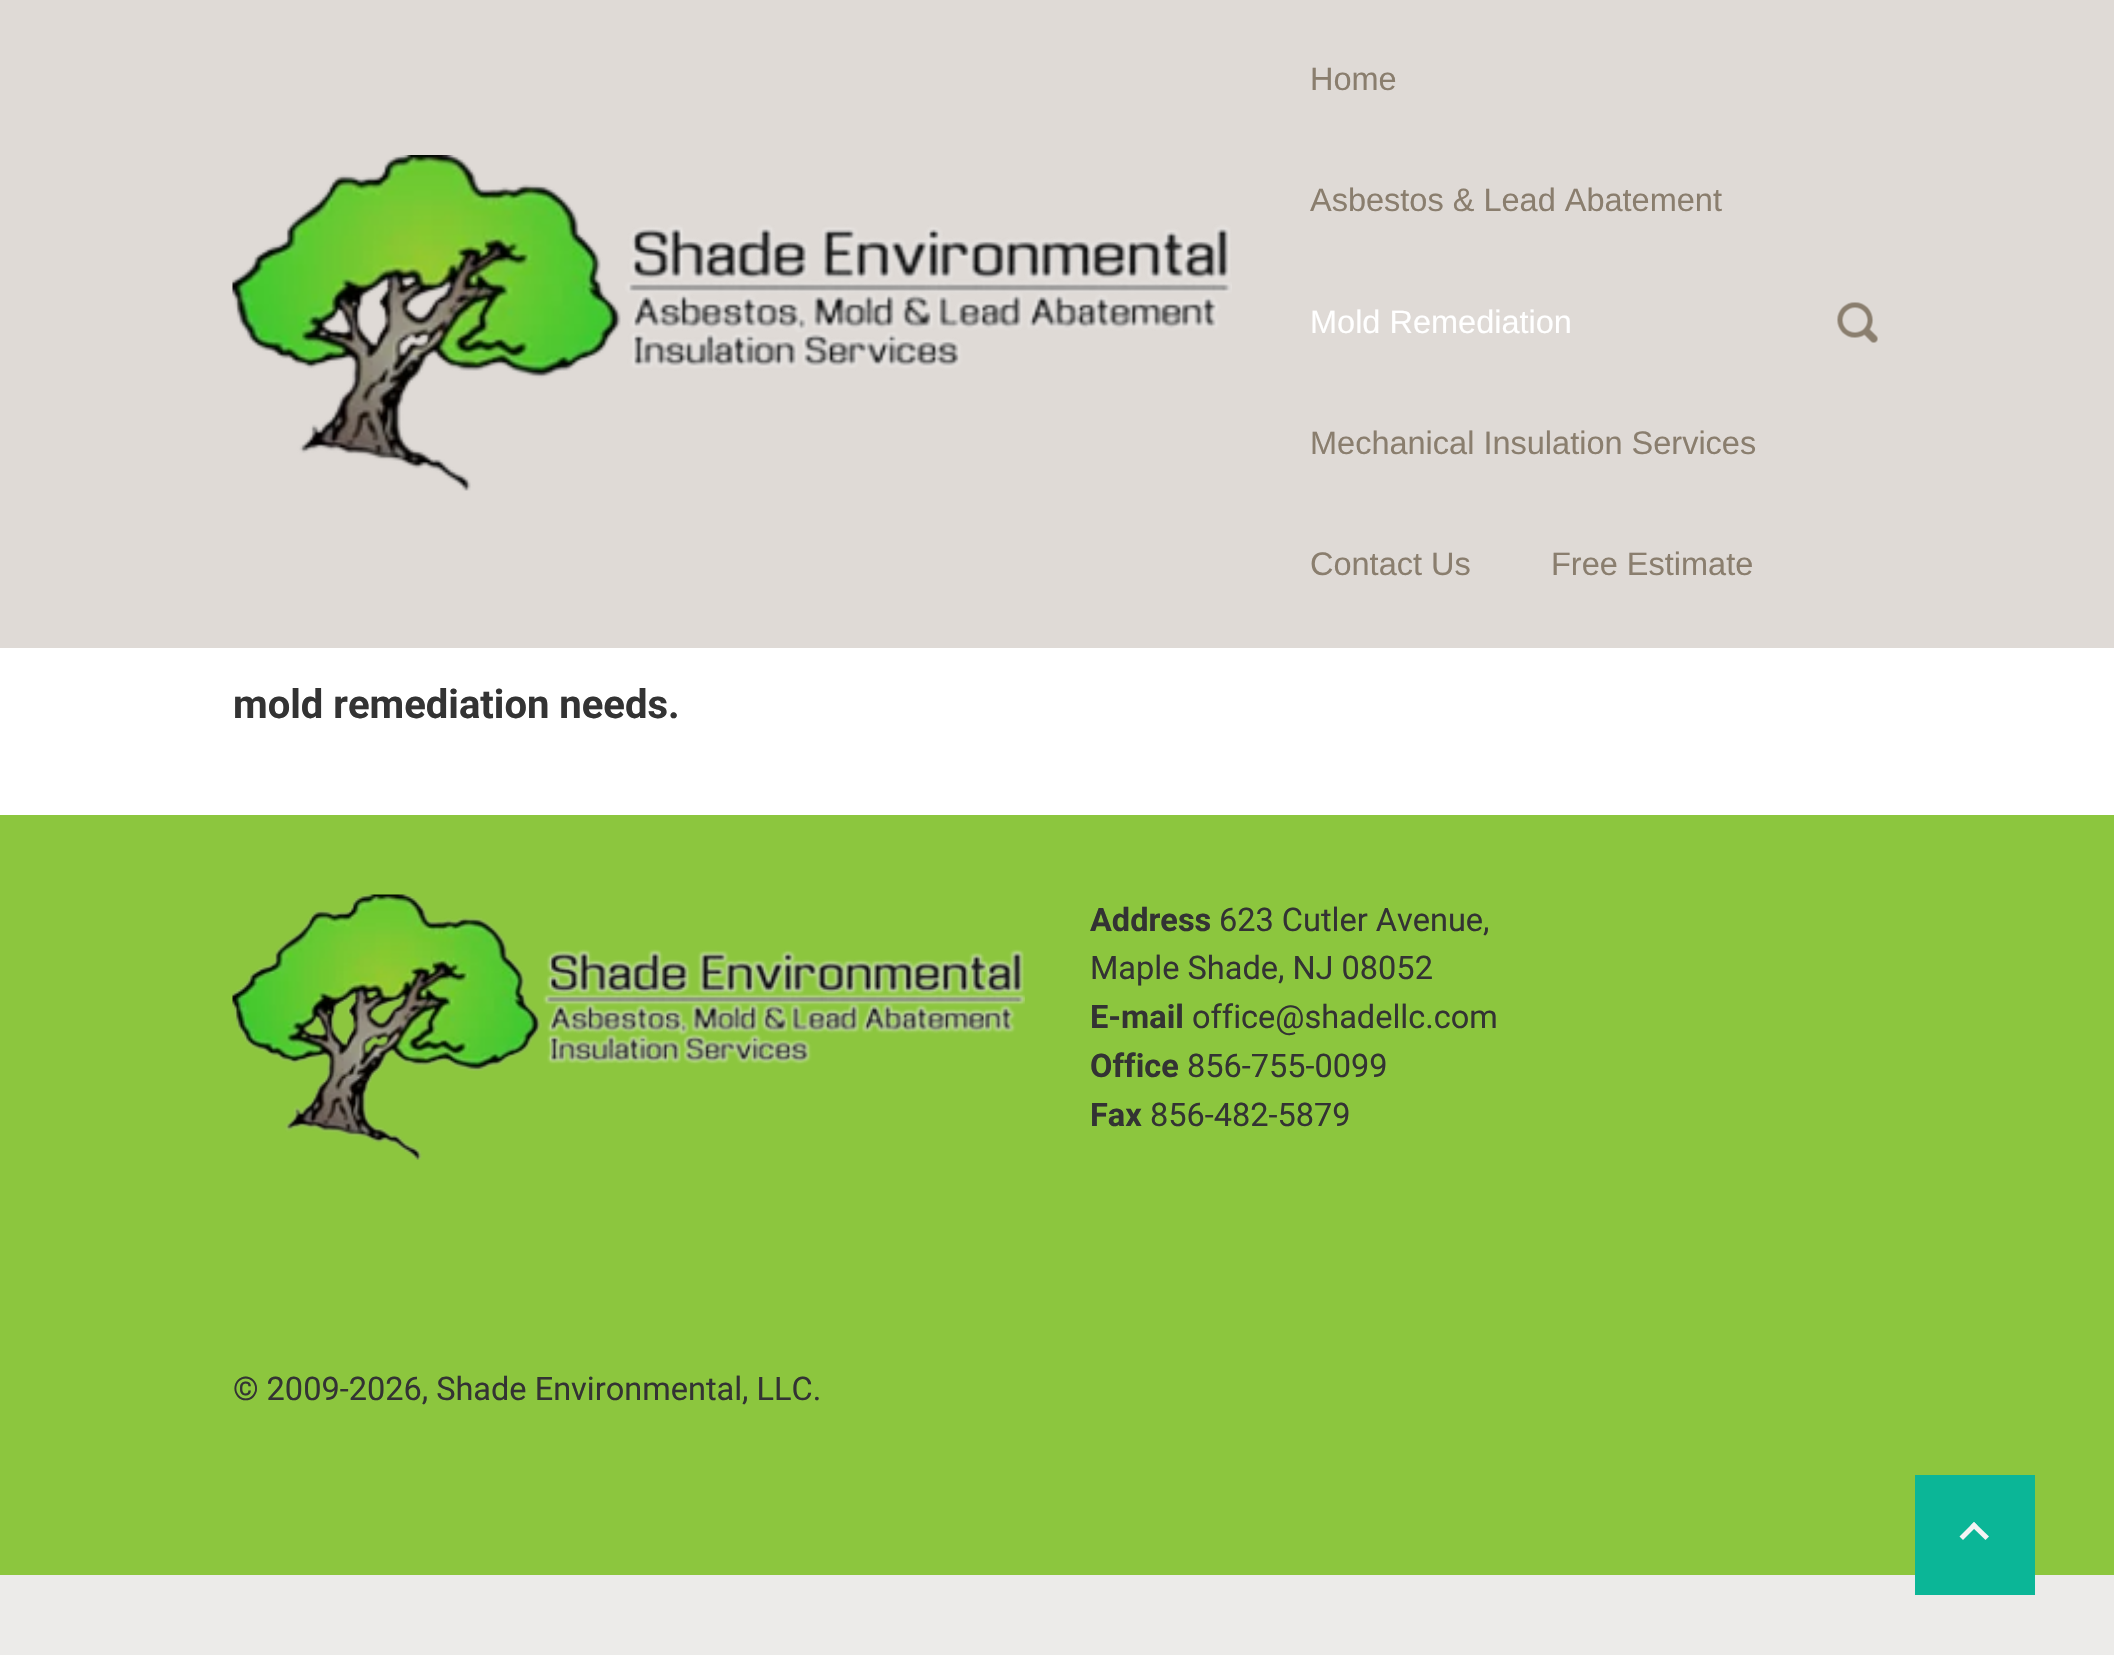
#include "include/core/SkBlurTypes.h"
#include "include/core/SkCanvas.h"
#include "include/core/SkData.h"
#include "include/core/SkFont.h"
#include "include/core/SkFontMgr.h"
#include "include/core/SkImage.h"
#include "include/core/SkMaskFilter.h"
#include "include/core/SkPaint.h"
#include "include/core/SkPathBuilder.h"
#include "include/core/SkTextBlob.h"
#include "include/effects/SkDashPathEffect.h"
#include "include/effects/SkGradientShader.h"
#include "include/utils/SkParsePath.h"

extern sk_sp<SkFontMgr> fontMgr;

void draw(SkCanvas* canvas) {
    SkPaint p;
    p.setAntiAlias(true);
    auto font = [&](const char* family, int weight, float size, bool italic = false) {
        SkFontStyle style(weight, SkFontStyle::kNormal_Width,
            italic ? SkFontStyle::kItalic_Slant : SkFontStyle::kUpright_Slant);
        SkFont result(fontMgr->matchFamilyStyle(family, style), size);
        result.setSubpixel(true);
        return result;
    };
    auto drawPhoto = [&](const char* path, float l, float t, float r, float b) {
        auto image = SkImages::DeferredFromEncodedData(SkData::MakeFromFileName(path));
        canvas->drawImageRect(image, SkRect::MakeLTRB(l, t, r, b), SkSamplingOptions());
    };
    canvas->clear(0xFFECEBE9);
    p.setColor(0xFFDFDAD6);
    canvas->drawRect(SkRect::MakeLTRB(0, 0, 2114, 648), p);
    drawPhoto("media/1.png", 232, 155, 1232, 491);
    auto font1 = font("Liberation Sans", 400, 32.5f);
    p.setColor(0xFF8A7E6E);
    canvas->drawString("Home", 1310, 90, font1, p);
    canvas->drawString("Asbestos & Lead Abatement", 1310, 211, font1, p);
    p.setColor(0xFFFFFFFF);
    canvas->drawString("Mold Remediation", 1310, 333, font1, p);
    p.setColor(0xFF8A7E6E);
    {
        const struct { const char* s; float x, y; } items[] = {
            {"Mechanical Insulation Services", 1310, 454},
            {"Contact Us", 1310, 575},
            {"Free Estimate", 1551, 575},
        };
        for (auto [s, x, y] : items) {
            canvas->drawString(s, x, y, font1, p);
        }
    }
    drawPhoto("media/2.png", 1837, 302, 1878, 343);
    p.setColor(0xFFFFFFFF);
    canvas->drawRect(SkRect::MakeLTRB(0, 648, 2114, 815), p);
    auto font2 = font("Roboto", 700, 40);
    p.setColor(0xFF333333);
    canvas->drawString("mold remediation needs.", 233, 718, font2, p);
    p.setColor(0xFF8CC63E);
    canvas->drawRect(SkRect::MakeLTRB(0, 815, 2114, 1575), p);
    drawPhoto("media/3.png", 232, 894, 1025, 1160);
    auto font3 = font("Roboto", 700, 32.5f);
    p.setColor(0xFF333333);
    canvas->drawString("Address", 1090, 931, font3, p);
    auto font4 = font("Roboto", 400, 32.5f);
    canvas->drawString("623 Cutler Avenue,", 1219, 931, font4, p);
    canvas->drawString("Maple Shade, NJ 08052", 1090, 979, font4, p);
    canvas->drawString("E-mail", 1090, 1028, font3, p);
    canvas->drawString("office@shadellc.com", 1192, 1028, font4, p);
    canvas->drawString("Office", 1090, 1077, font3, p);
    canvas->drawString("856-755-0099", 1187, 1077, font4, p);
    canvas->drawString("Fax", 1090, 1126, font3, p);
    canvas->drawString("856-482-5879", 1150, 1126, font4, p);
    canvas->drawString("© 2009-2026, Shade Environmental, LLC.", 233, 1400, font4, p);
    p.setColor(0xFF0BB697);
    canvas->drawRect(SkRect::MakeLTRB(1915, 1475, 2035, 1595), p);
    p.setColor(0xFFF4F4F4);
    canvas->drawPath(SkPathBuilder().moveTo(1959.5f, 1536.5f).lineTo(1974, 1522).lineTo(1977.5f, 1525.5f).lineTo(1963, 1540).close().detach(), p);
    canvas->drawPath(SkPathBuilder().moveTo(1970.5f, 1525.5f).lineTo(1974, 1522).lineTo(1989, 1536.5f).lineTo(1985.5f, 1540).close().detach(), p);
}
